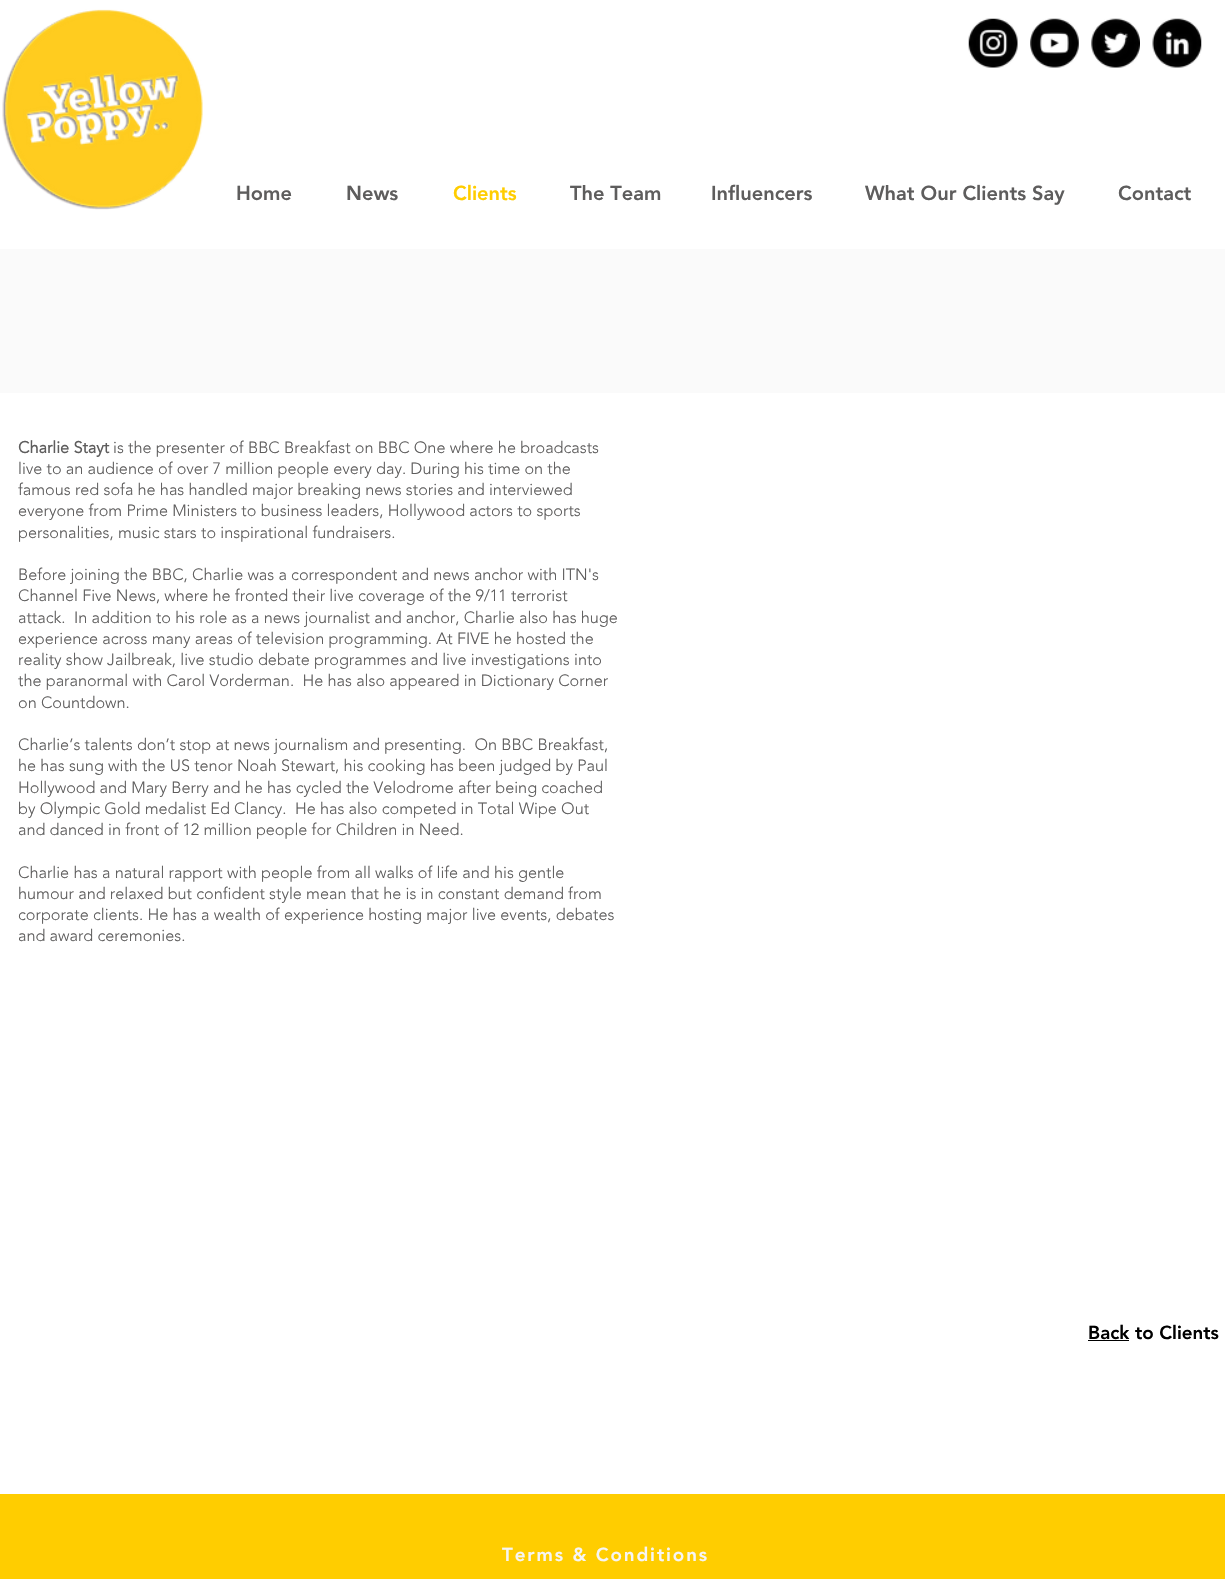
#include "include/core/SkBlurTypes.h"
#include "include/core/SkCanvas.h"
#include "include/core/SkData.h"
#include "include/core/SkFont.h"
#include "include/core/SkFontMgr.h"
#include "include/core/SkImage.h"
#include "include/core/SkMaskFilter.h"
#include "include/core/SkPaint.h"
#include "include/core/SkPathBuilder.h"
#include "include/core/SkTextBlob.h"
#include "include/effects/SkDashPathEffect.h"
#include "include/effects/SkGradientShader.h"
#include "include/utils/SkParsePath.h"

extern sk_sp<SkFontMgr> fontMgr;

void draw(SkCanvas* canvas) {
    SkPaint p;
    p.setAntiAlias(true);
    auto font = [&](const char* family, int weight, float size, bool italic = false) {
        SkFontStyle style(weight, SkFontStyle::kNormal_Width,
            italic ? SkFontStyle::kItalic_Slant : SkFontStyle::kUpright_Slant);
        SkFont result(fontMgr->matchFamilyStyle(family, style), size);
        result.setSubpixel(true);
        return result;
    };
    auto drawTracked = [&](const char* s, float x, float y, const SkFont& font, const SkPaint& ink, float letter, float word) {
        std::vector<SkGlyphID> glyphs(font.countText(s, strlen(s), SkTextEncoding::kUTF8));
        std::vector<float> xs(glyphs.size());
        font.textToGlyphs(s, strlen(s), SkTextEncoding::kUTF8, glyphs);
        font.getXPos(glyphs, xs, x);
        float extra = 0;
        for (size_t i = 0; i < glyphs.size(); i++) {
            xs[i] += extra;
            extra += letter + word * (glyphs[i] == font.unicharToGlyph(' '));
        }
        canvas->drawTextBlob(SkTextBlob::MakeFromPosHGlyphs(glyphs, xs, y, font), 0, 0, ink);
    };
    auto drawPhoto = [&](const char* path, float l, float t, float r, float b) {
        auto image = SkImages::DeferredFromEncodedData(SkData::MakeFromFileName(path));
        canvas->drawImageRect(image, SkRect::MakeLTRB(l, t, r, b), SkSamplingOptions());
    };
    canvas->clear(0xFFFFFFFF);
    drawPhoto("media/1.png", 2, 9, 203, 210);
    drawPhoto("media/2.png", 968, 18, 1018, 68);
    drawPhoto("media/3.png", 1030, 18, 1079, 68);
    drawPhoto("media/4.png", 1091, 18, 1140, 68);
    drawPhoto("media/5.png", 1152, 18, 1202, 68);
    auto font1 = font("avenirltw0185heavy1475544", 900, 20);
    p.setColor(0xFF5E5D5D);
    canvas->drawString("Home", 236, 200, font1, p);
    canvas->drawString("News", 346, 200, font1, p);
    p.setColor(0xFFFFCD00);
    canvas->drawString("Clients", 453, 200, font1, p);
    p.setColor(0xFF5E5D5D);
    {
        const struct { const char* s; float x, y; } items[] = {
            {"The Team", 570, 200},
            {"Influencers", 711, 200},
            {"What Our Clients Say", 865, 200},
            {"Contact", 1118, 200},
        };
        for (auto [s, x, y] : items) {
            canvas->drawString(s, x, y, font1, p);
        }
    }
    p.setColor(0xFFFAFAFA);
    canvas->drawRect(SkRect::MakeLTRB(0, 249, 1225, 393), p);
    auto font2 = font("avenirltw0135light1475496", 700, 16.25f);
    p.setColor(0xFF5E5D5D);
    canvas->drawString("Charlie Stayt", 18, 453, font2, p);
    auto font3 = font("avenirltw0135light1475496", 300, 16.25f);
    {
        const struct { const char* s; float x, y; } items[] = {
            {"is the presenter of BBC Breakfast on BBC One where he broadcasts", 113, 453},
            {"live to an audience of over 7 million people every day. During his time on the", 18, 474},
            {"famous red sofa he has handled major breaking news stories and interviewed", 18, 495},
            {"everyone from Prime Ministers to business leaders, Hollywood actors to sports", 18, 516},
            {"personalities, music stars to inspirational fundraisers.", 18, 538},
            {"Before joining the BBC, Charlie was a correspondent and news anchor with ITN's", 18, 580},
            {"Channel Five News, where he fronted their live coverage of the 9/11 terrorist", 18, 601},
            {"attack.  In addition to his role as a news journalist and anchor, Charlie also has huge", 18, 623},
            {"experience across many areas of television programming. At FIVE he hosted the", 18, 644},
            {"reality show Jailbreak, live studio debate programmes and live investigations into", 18, 665},
            {"the paranormal with Carol Vorderman.  He has also appeared in Dictionary Corner", 18, 686},
            {"on Countdown.", 18, 708},
            {"Charlie’s talents don’t stop at news journalism and presenting.  On BBC Breakfast,", 18, 750},
            {"he has sung with the US tenor Noah Stewart, his cooking has been judged by Paul", 18, 771},
            {"Hollywood and Mary Berry and he has cycled the Velodrome after being coached", 18, 793},
            {"by Olympic Gold medalist Ed Clancy.  He has also competed in Total Wipe Out", 18, 814},
            {"and danced in front of 12 million people for Children in Need.", 18, 835},
            {"Charlie has a natural rapport with people from all walks of life and his gentle", 18, 878},
            {"humour and relaxed but confident style mean that he is in constant demand from", 18, 899},
            {"corporate clients. He has a wealth of experience hosting major live events, debates", 18, 920},
            {"and award ceremonies.", 18, 941},
        };
        for (auto [s, x, y] : items) {
            canvas->drawString(s, x, y, font3, p);
        }
    }
    auto font4 = font("avenirltw0185heavy1475544", 900, 18.75f);
    p.setColor(0xFF000000);
    canvas->drawString("Back to Clients", 1088, 1339, font4, p);
    canvas->drawRect(SkRect::MakeLTRB(1088, 1340, 1129, 1341), p);
    p.setColor(0xFFFFCD00);
    canvas->drawRect(SkRect::MakeLTRB(0, 1494, 1225, 1579), p);
    p.setColor(0xFFF6F5F5);
    drawTracked("Terms & Conditions", 502, 1561, font4, p, 1.9f, 0);
}
